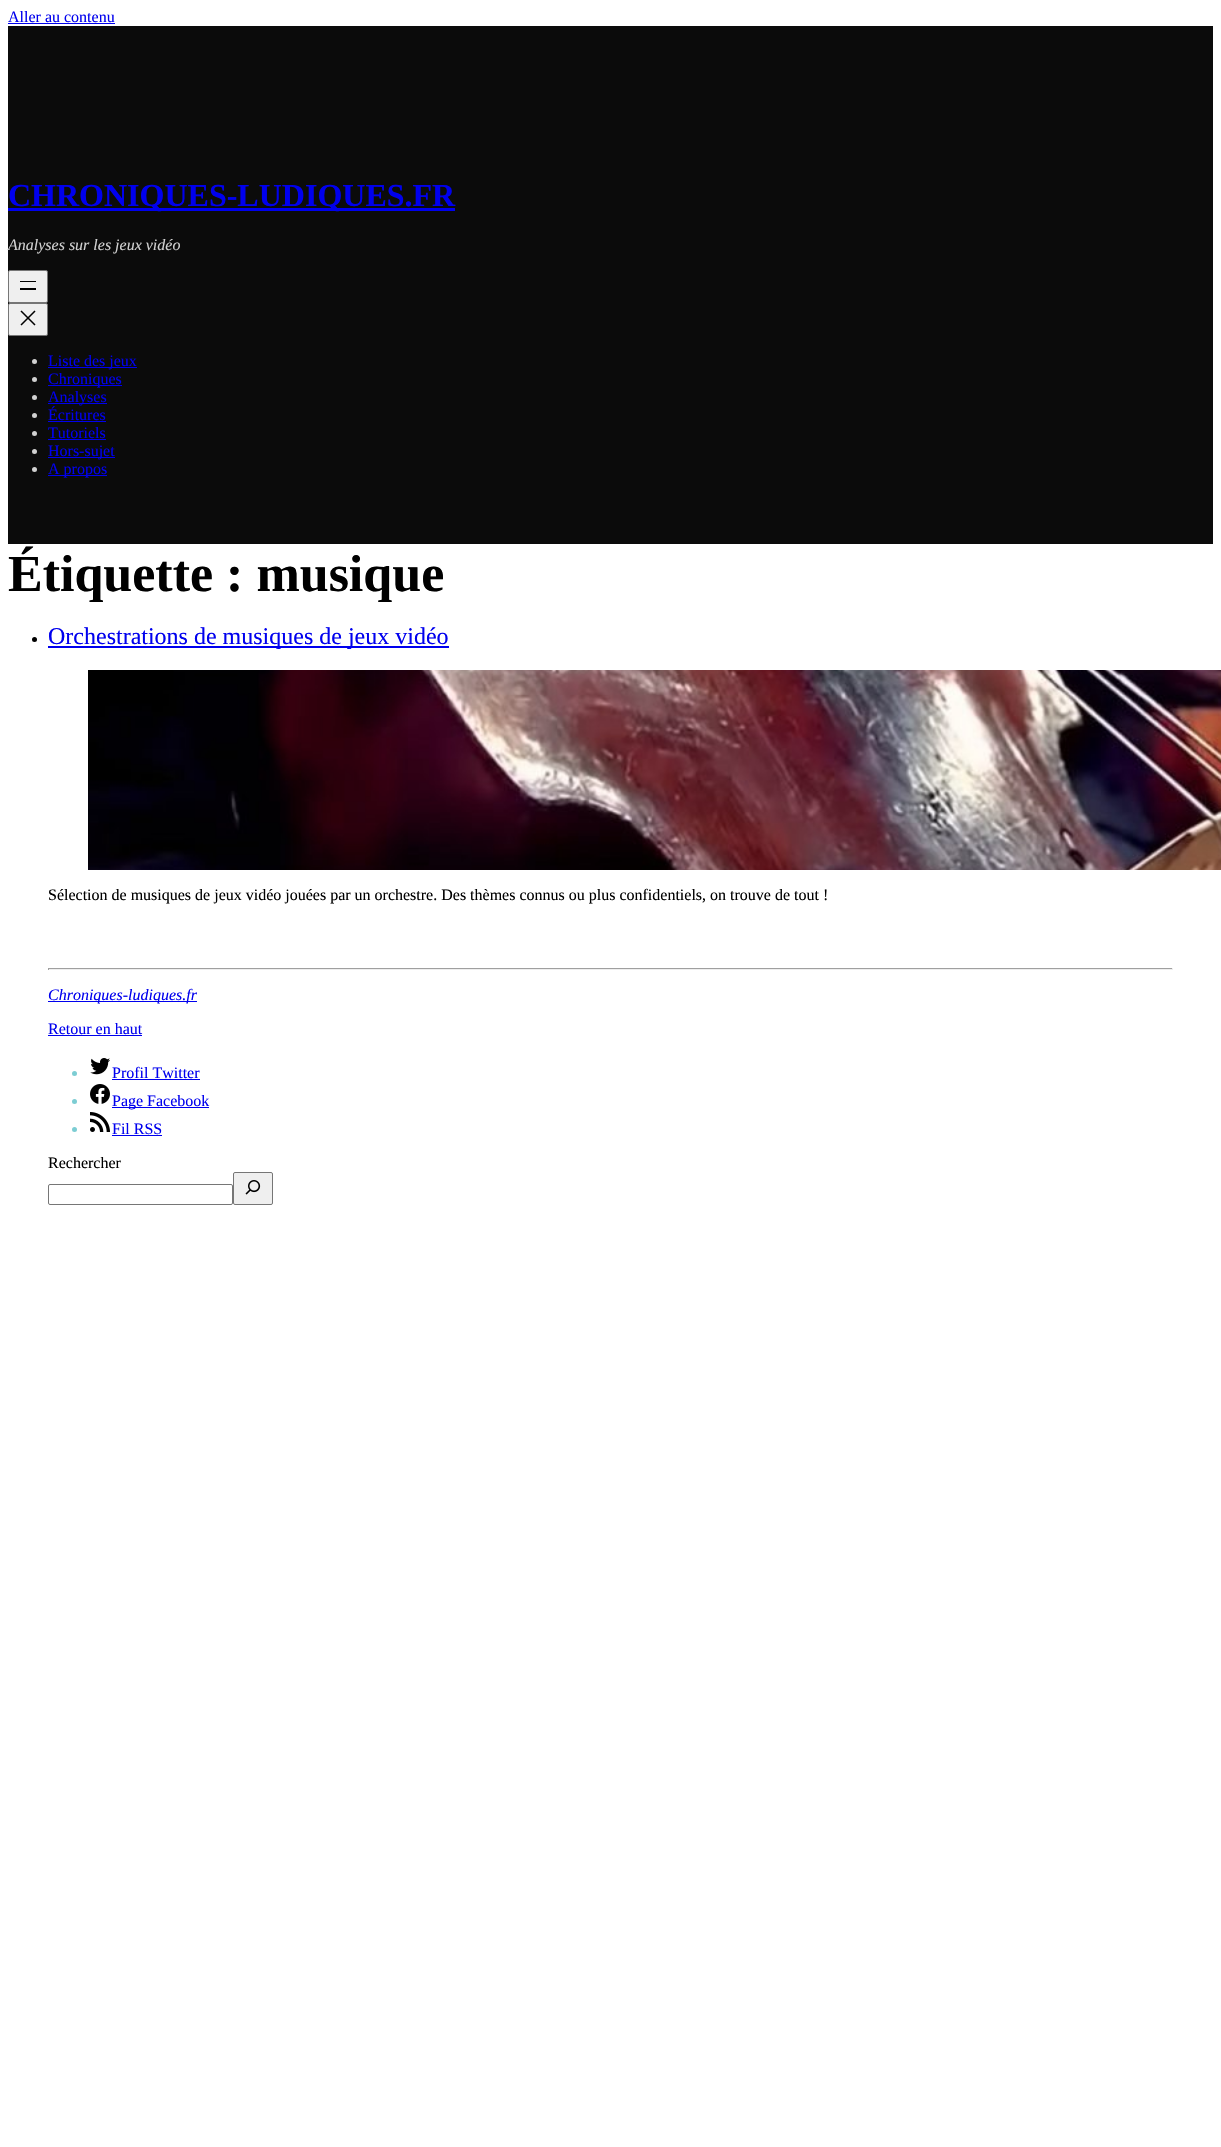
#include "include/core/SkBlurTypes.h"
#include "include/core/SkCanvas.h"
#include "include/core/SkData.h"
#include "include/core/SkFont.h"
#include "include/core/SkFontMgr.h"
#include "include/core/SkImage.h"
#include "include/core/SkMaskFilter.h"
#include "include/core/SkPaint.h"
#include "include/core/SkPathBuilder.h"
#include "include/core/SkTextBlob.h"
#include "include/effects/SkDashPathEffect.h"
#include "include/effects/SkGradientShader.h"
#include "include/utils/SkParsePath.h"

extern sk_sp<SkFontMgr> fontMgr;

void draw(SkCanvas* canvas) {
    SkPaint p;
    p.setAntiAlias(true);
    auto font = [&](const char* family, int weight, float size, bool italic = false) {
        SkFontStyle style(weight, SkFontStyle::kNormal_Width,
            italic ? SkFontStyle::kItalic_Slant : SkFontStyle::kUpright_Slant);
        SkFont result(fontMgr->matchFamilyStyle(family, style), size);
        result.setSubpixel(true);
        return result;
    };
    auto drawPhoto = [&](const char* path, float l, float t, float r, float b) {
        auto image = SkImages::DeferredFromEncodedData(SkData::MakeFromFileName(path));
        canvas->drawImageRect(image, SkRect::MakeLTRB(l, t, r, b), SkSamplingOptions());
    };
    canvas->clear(0xFFFFFFFF);
    auto font1 = font("Liberation Serif", 400, 16);
    p.setColor(0xFF0000EE);
    canvas->drawString("Aller au contenu", 8, 22, font1, p);
    {
        const struct { float l, t, r, b; SkColor color; } items[] = {
            {8, 23, 115, 24, 0xFF0000EE},
            {8, 26, 1213, 544, 0xFF0B0B0B},
            {8, 208, 455, 211, 0xFF0000EE},
        };
        for (auto [l, t, r, b, color] : items) {
            p.setColor(color);
            canvas->drawRect(SkRect::MakeLTRB(l, t, r, b), p);
        }
    }
    auto font2 = font("Liberation Serif", 700, 32);
    canvas->drawString("CHRONIQUES-LUDIQUES.FR", 8, 206, font2, p);
    auto font3 = font("Liberation Serif", 400, 16, true);
    p.setColor(0xFFD1D1D1);
    canvas->drawString("Analyses sur les jeux vidéo", 8, 250, font3, p);
    p.setColor(0xFFEFEFEF);
    canvas->drawRoundRect(SkRect::MakeLTRB(8.5f, 270.5f, 47.5f, 302.5f), 1.5f, 1.5f, p);
    p.setStyle(SkPaint::kStroke_Style);
    p.setStrokeWidth(1);
    p.setColor(0xFF767676);
    canvas->drawRoundRect(SkRect::MakeLTRB(8.5f, 270.5f, 47.5f, 302.5f), 1.5f, 1.5f, p);
    p.setStyle(SkPaint::kFill_Style);
    p.setColor(0xFF000000);
    canvas->drawRect(SkRect::MakeLTRB(20, 281, 36, 282), p);
    canvas->drawRect(SkRect::MakeLTRB(20, 288, 36, 290), p);
    p.setColor(0xFFEFEFEF);
    canvas->drawRoundRect(SkRect::MakeLTRB(8.5f, 303.5f, 47.5f, 335.5f), 1.5f, 1.5f, p);
    p.setStyle(SkPaint::kStroke_Style);
    p.setColor(0xFF767676);
    canvas->drawRoundRect(SkRect::MakeLTRB(8.5f, 303.5f, 47.5f, 335.5f), 1.5f, 1.5f, p);
    drawPhoto("media/1.png", 20, 310, 36, 326);
    p.setStyle(SkPaint::kFill_Style);
    p.setColor(0xFFD1D1D1);
    canvas->drawCircle(34.5f, 361.5f, 2.5f, p);
    p.setColor(0xFF0000EE);
    canvas->drawRect(SkRect::MakeLTRB(48, 367, 137, 368), p);
    canvas->drawString("Liste des jeux", 48, 366, font1, p);
    p.setColor(0xFFD1D1D1);
    canvas->drawCircle(34.5f, 379.5f, 2.5f, p);
    p.setColor(0xFF0000EE);
    canvas->drawRect(SkRect::MakeLTRB(48, 385, 122, 386), p);
    canvas->drawString("Chroniques", 48, 384, font1, p);
    p.setColor(0xFFD1D1D1);
    canvas->drawCircle(34.5f, 397.5f, 2.5f, p);
    p.setColor(0xFF0000EE);
    canvas->drawRect(SkRect::MakeLTRB(48, 403, 107, 404), p);
    canvas->drawString("Analyses", 48, 402, font1, p);
    p.setColor(0xFFD1D1D1);
    canvas->drawCircle(34.5f, 415.5f, 2.5f, p);
    p.setColor(0xFF0000EE);
    canvas->drawString("Écritures", 48, 420, font1, p);
    canvas->drawRect(SkRect::MakeLTRB(48, 421, 106, 422), p);
    p.setColor(0xFFD1D1D1);
    canvas->drawCircle(34.5f, 433.5f, 2.5f, p);
    p.setColor(0xFF0000EE);
    canvas->drawString("Tutoriels", 48, 438, font1, p);
    canvas->drawRect(SkRect::MakeLTRB(48, 439, 106, 440), p);
    p.setColor(0xFFD1D1D1);
    canvas->drawCircle(34.5f, 451.5f, 2.5f, p);
    p.setColor(0xFF0000EE);
    canvas->drawRect(SkRect::MakeLTRB(48, 457, 115, 458), p);
    canvas->drawString("Hors-sujet", 48, 456, font1, p);
    p.setColor(0xFFD1D1D1);
    canvas->drawCircle(34.5f, 469.5f, 2.5f, p);
    p.setColor(0xFF0000EE);
    canvas->drawRect(SkRect::MakeLTRB(48, 475, 107, 476), p);
    canvas->drawString("A propos", 48, 474, font1, p);
    auto font4 = font("Liberation Serif", 700, 52);
    p.setColor(0xFF000000);
    canvas->drawString("Étiquette : musique", 8, 591, font4, p);
    canvas->drawCircle(34.5f, 639.5f, 2.5f, p);
    p.setColor(0xFF0000EE);
    canvas->drawRect(SkRect::MakeLTRB(48, 646, 449, 648), p);
    auto font5 = font("Liberation Serif", 400, 24);
    canvas->drawString("Orchestrations de musiques de jeux vidéo", 48, 644, font5, p);
    drawPhoto("media/2.png", 88, 670, 1221, 870);
    p.setColor(0xFF000000);
    canvas->drawString("Sélection de musiques de jeux vidéo jouées par un orchestre. Des thèmes connus ou plus confidentiels, on trouve de tout !", 48, 900, font1, p);
    {
        const struct { float l, t, r, b; SkColor color; } items[] = {
            {48, 968, 1173, 969, 0xFF9F9F9F},
            {1172, 968, 1173, 970, 0xFFEEEEEE},
            {48, 969, 1173, 970, 0xFFEEEEEE},
            {48, 968, 49, 970, 0xFF9F9F9F},
            {48, 1001, 197, 1002, 0xFF0000EE},
        };
        for (auto [l, t, r, b, color] : items) {
            p.setColor(color);
            canvas->drawRect(SkRect::MakeLTRB(l, t, r, b), p);
        }
    }
    canvas->drawString("Chroniques-ludiques.fr", 48, 1000, font3, p);
    canvas->drawString("Retour en haut", 48, 1034, font1, p);
    canvas->drawRect(SkRect::MakeLTRB(48, 1035, 142, 1036), p);
    p.setColor(0xFF7CCDD3);
    canvas->drawCircle(74.5f, 1073.5f, 2.5f, p);
    drawPhoto("media/3.png", 90, 1058, 110, 1075);
    p.setColor(0xFF0000EE);
    canvas->drawString("Profil Twitter", 112, 1078, font1, p);
    canvas->drawRect(SkRect::MakeLTRB(112, 1079, 200, 1080), p);
    p.setColor(0xFF7CCDD3);
    canvas->drawCircle(74.5f, 1101.5f, 2.5f, p);
    drawPhoto("media/4.png", 90, 1084, 110, 1104);
    p.setColor(0xFF0000EE);
    canvas->drawRect(SkRect::MakeLTRB(112, 1107, 209, 1108), p);
    canvas->drawString("Page Facebook", 112, 1106, font1, p);
    p.setColor(0xFF7CCDD3);
    canvas->drawCircle(74.5f, 1129.5f, 2.5f, p);
    drawPhoto("media/5.png", 90, 1112, 110, 1132);
    p.setColor(0xFF0000EE);
    canvas->drawString("Fil RSS", 112, 1134, font1, p);
    canvas->drawRect(SkRect::MakeLTRB(112, 1135, 162, 1136), p);
    p.setColor(0xFF000000);
    canvas->drawString("Rechercher", 48, 1168, font1, p);
    p.setStyle(SkPaint::kStroke_Style);
    p.setColor(0xFF767676);
    canvas->drawRoundRect(SkRect::MakeLTRB(48.5f, 1184.5f, 232.5f, 1204.5f), 1.5f, 1.5f, p);
    p.setStyle(SkPaint::kFill_Style);
    p.setColor(0xFFEFEFEF);
    canvas->drawRoundRect(SkRect::MakeLTRB(233.5f, 1172.5f, 272.5f, 1204.5f), 1.5f, 1.5f, p);
    p.setStyle(SkPaint::kStroke_Style);
    p.setColor(0xFF767676);
    canvas->drawRoundRect(SkRect::MakeLTRB(233.5f, 1172.5f, 272.5f, 1204.5f), 1.5f, 1.5f, p);
    drawPhoto("media/6.png", 245, 1180, 261, 1195);
}
